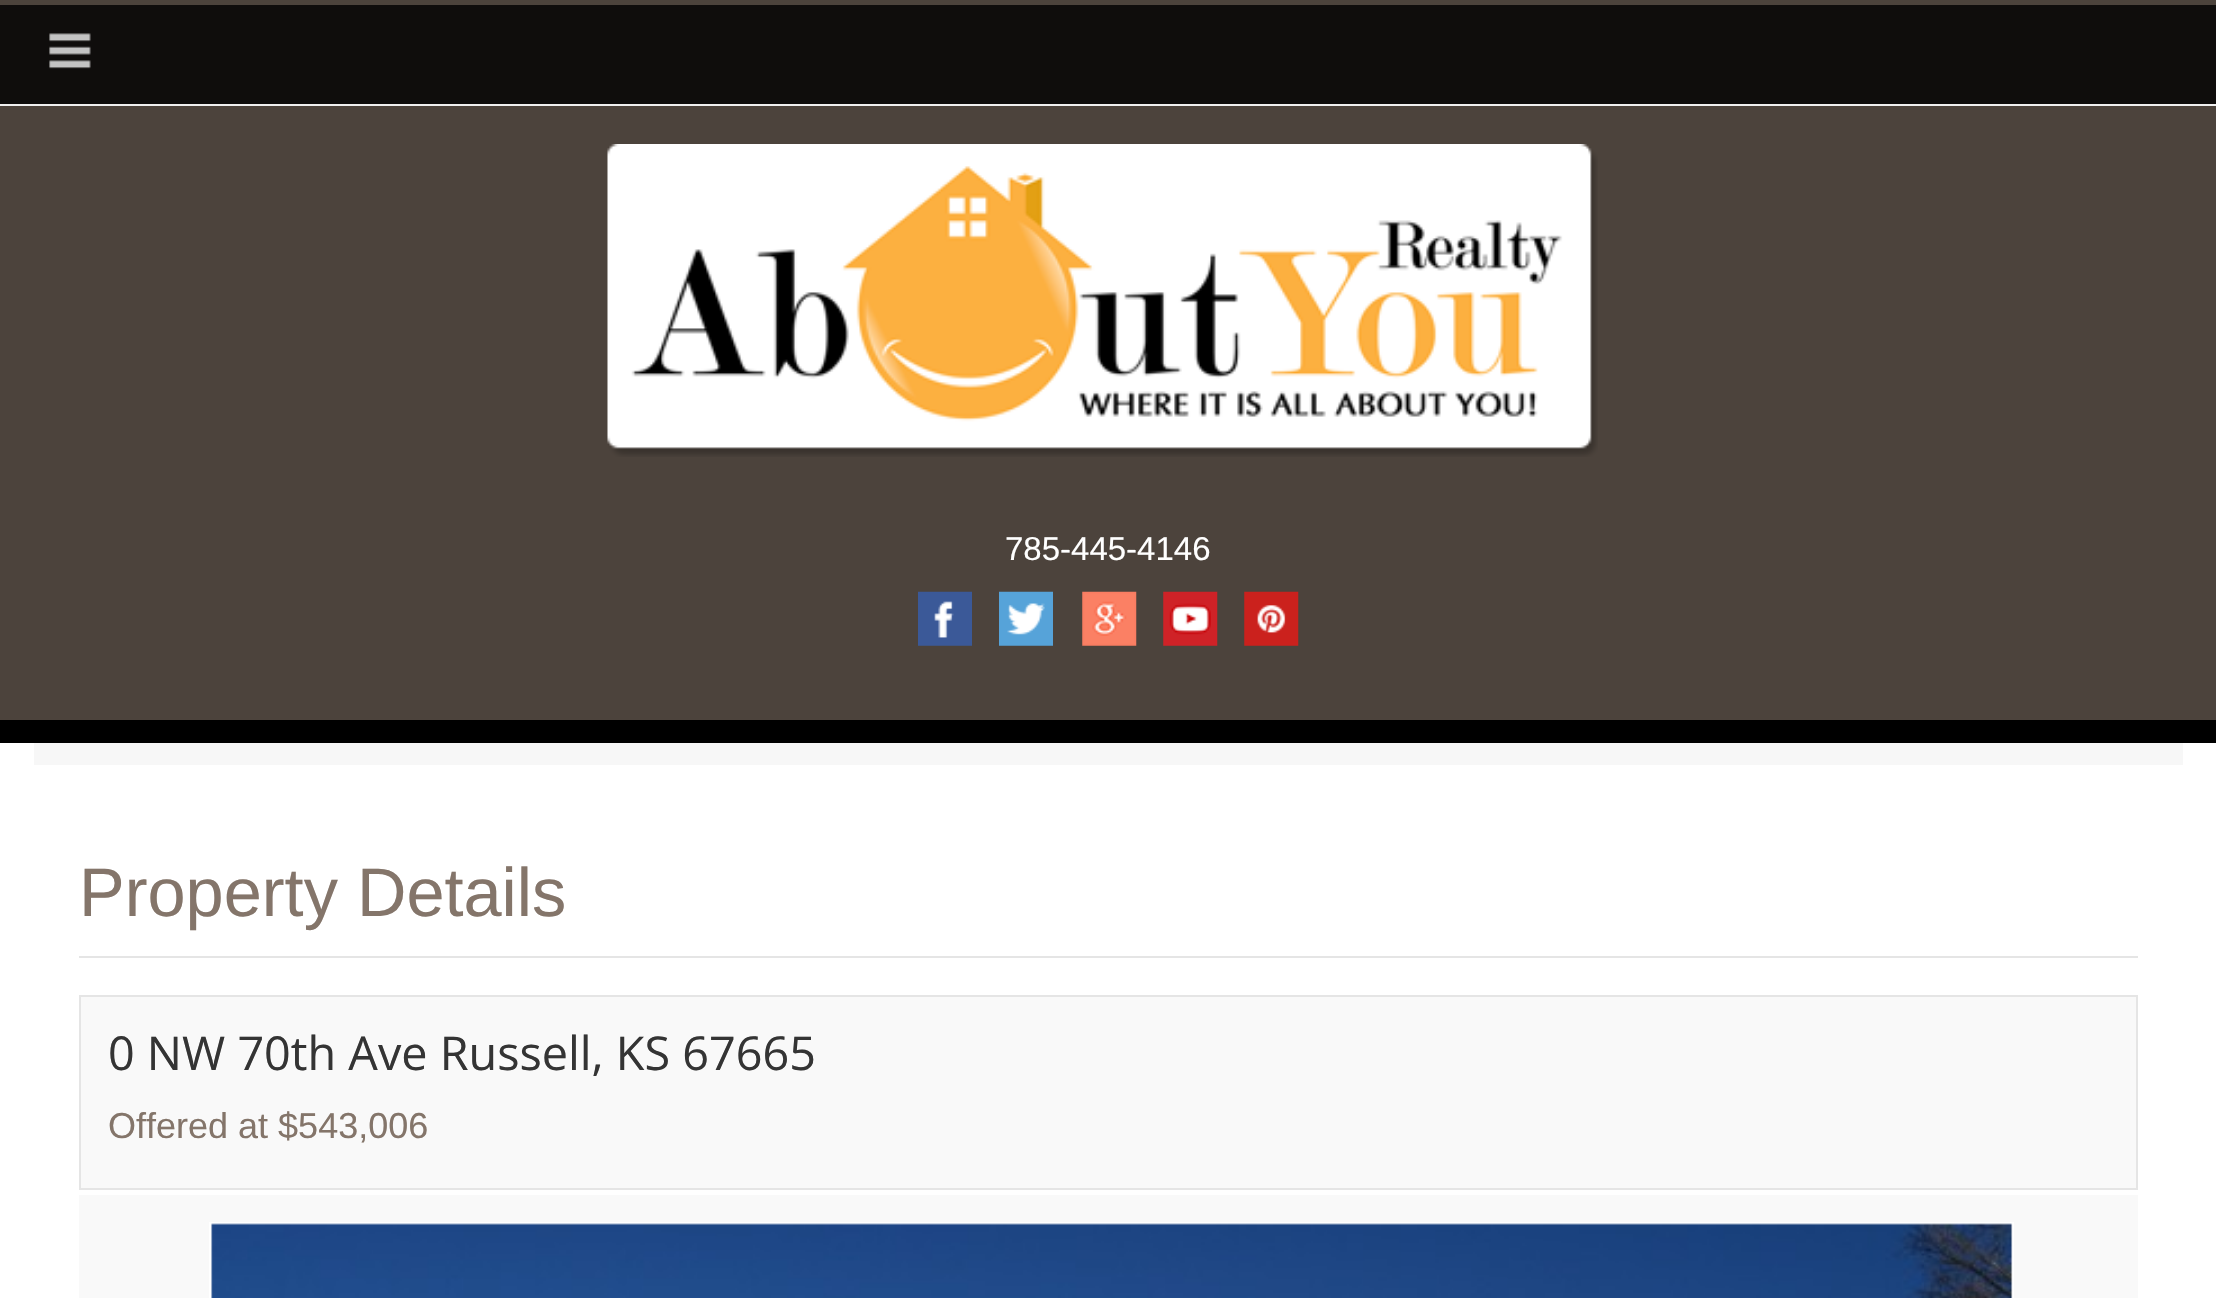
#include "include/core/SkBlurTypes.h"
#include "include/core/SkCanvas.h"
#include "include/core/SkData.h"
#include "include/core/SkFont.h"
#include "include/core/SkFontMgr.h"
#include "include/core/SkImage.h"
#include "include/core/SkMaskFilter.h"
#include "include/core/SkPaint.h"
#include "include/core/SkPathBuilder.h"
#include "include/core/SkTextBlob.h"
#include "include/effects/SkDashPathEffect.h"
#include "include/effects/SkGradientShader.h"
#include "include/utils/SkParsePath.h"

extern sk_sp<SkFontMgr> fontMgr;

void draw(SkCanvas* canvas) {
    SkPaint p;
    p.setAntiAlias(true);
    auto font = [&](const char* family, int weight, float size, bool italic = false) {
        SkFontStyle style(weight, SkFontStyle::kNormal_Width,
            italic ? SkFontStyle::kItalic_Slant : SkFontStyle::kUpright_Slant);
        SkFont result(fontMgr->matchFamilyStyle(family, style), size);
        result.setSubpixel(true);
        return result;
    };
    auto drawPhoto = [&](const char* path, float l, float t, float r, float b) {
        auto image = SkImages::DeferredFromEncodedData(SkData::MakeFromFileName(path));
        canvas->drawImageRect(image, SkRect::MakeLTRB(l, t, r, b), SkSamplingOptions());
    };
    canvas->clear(0xFF4C433C);
    p.setColor(0xFF0F0D0C);
    canvas->drawRect(SkRect::MakeLTRB(0, 5, 2216, 104), p);
    p.setColor(0xFFF0F0F0);
    canvas->drawRect(SkRect::MakeLTRB(0, 104, 2216, 106), p);
    drawPhoto("media/1.png", 49, 33, 91, 69);
    drawPhoto("media/2.png", 607, 144, 1598, 457);
    auto font1 = font("Liberation Sans", 400, 33);
    p.setColor(0xFFFFFFFF);
    canvas->drawString("785-445-4146", 1005, 560, font1, p);
    drawPhoto("media/3.png", 918, 591, 972, 646);
    drawPhoto("media/4.png", 999, 591, 1053, 646);
    drawPhoto("media/5.png", 1082, 591, 1137, 646);
    drawPhoto("media/6.png", 1163, 591, 1218, 646);
    drawPhoto("media/7.png", 1244, 591, 1299, 646);
    {
        const struct { float l, t, r, b; SkColor color; } items[] = {
            {0, 743, 2216, 1298, 0xFFFFFFFF},
            {0, 720, 2216, 743, 0xFF000000},
            {34, 743, 2183, 765, 0xFFF7F7F7},
        };
        for (auto [l, t, r, b, color] : items) {
            p.setColor(color);
            canvas->drawRect(SkRect::MakeLTRB(l, t, r, b), p);
        }
    }
    auto font2 = font("Liberation Sans", 400, 68.5f);
    p.setColor(0xFF84756A);
    canvas->drawString("Property Details", 79, 916, font2, p);
    p.setColor(0xFFE5E5E5);
    canvas->drawRect(SkRect::MakeLTRB(79, 956, 2138, 958), p);
    p.setColor(0xFFF9F9F9);
    canvas->drawRect(SkRect::MakeLTRB(80, 996, 2137, 1189), p);
    p.setStyle(SkPaint::kStroke_Style);
    p.setStrokeWidth(2);
    p.setColor(0xFFE5E5E5);
    canvas->drawRect(SkRect::MakeLTRB(80, 996, 2137, 1189), p);
    auto font3 = font("Open Sans", 400, 46.75f);
    p.setStyle(SkPaint::kFill_Style);
    p.setColor(0xFF343434);
    canvas->drawString("0 NW 70th Ave Russell, KS 67665", 108, 1070, font3, p);
    auto font4 = font("Liberation Sans", 400, 36);
    p.setColor(0xFF84756A);
    canvas->drawString("Offered at $543,006", 108, 1138, font4, p);
    p.setColor(0xFFF9F9F9);
    canvas->drawRect(SkRect::MakeLTRB(79, 1195, 2138, 1298), p);
    p.setStyle(SkPaint::kStroke_Style);
    p.setColor(0xFFFFFFFF);
    canvas->drawRect(SkRect::MakeLTRB(210, 1223, 2013, 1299), p);
    drawPhoto("media/8.png", 211, 1223, 2013, 1298);
}
